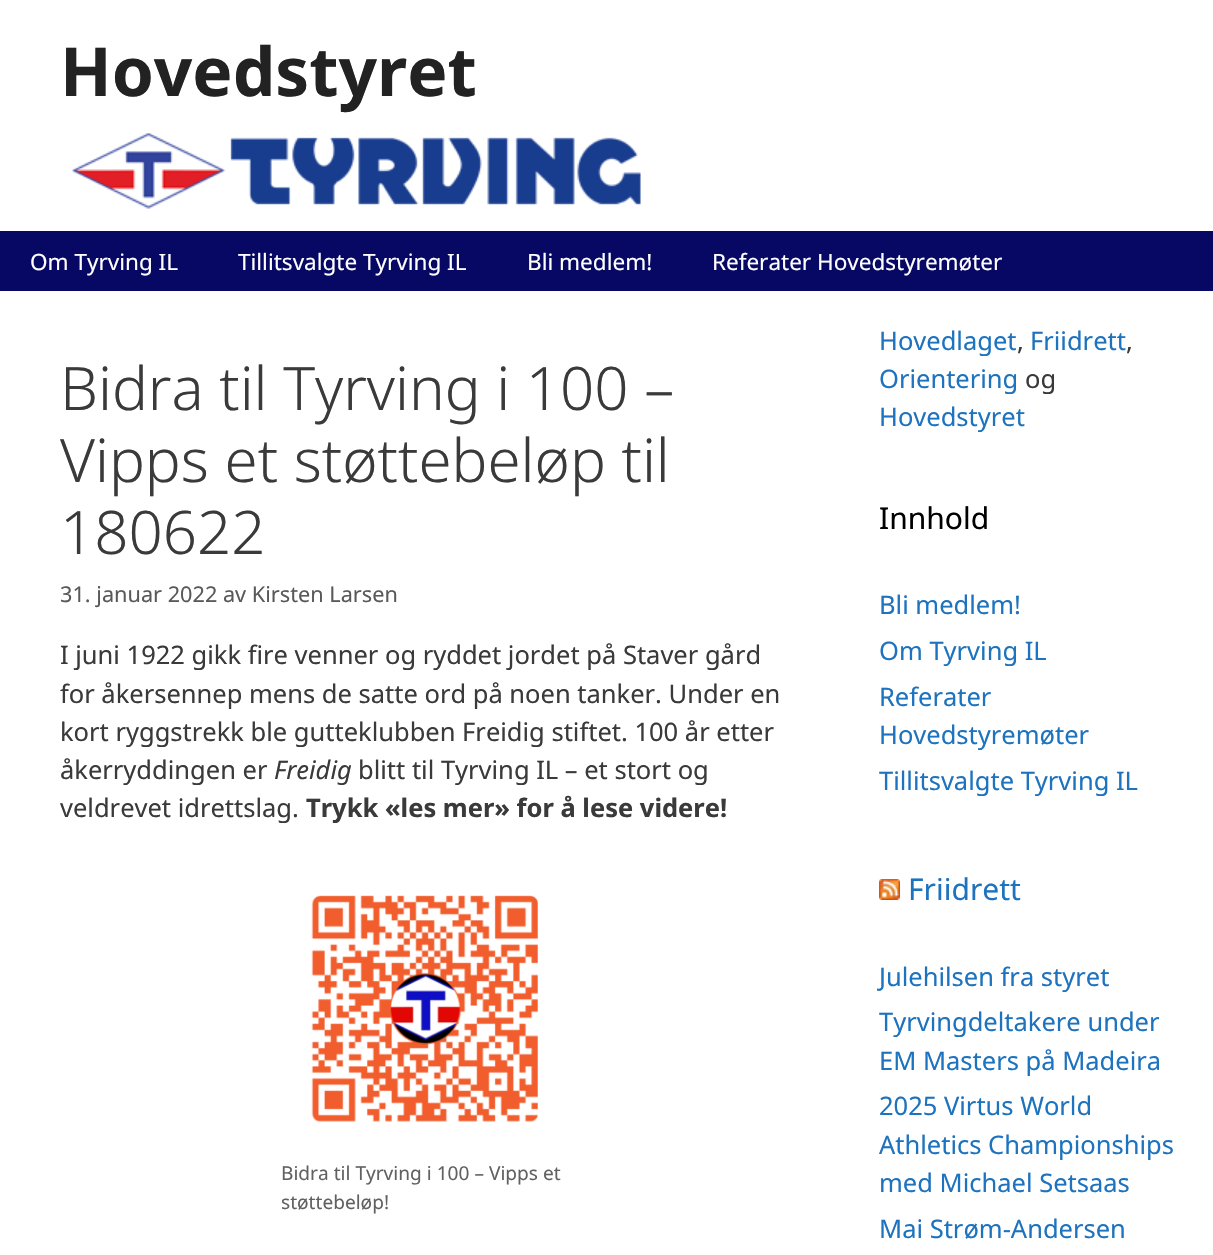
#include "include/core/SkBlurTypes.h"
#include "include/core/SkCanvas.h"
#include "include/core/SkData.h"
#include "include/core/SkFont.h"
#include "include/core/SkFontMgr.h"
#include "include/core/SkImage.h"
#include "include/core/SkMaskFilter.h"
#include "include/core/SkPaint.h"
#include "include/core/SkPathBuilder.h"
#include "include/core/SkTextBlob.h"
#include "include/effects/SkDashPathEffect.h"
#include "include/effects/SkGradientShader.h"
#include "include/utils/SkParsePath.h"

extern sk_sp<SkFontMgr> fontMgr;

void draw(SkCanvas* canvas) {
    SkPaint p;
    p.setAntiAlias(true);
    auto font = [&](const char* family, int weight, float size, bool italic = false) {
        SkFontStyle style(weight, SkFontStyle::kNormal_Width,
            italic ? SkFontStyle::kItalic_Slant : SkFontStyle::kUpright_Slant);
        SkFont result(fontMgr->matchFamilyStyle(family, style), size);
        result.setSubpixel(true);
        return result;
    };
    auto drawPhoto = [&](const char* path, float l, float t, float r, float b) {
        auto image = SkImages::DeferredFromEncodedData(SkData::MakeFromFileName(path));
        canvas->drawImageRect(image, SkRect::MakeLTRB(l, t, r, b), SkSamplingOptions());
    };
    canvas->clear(0xFF070764);
    p.setColor(0xFFFFFFFF);
    canvas->drawRect(SkRect::MakeLTRB(0, 0, 1213, 231), p);
    auto font1 = font("Noto Sans", 700, 67.5f);
    p.setColor(0xFF222222);
    canvas->drawString("Hovedstyret", 60, 96, font1, p);
    drawPhoto("media/1.png", 71, 133, 641, 209);
    auto font2 = font("Noto Sans", 400, 22.5f);
    p.setColor(0xFFFFFFFF);
    {
        const struct { const char* s; float x, y; } items[] = {
            {"Om Tyrving IL", 30, 270},
            {"Tillitsvalgte Tyrving IL", 238, 270},
            {"Bli medlem!", 527, 270},
            {"Referater Hovedstyremøter", 712, 270},
        };
        for (auto [s, x, y] : items) {
            canvas->drawString(s, x, y, font2, p);
        }
    }
    canvas->drawRect(SkRect::MakeLTRB(0, 291, 849, 1255), p);
    auto font3 = font("Noto Sans", 300, 60);
    p.setColor(0xFF3A3A3A);
    {
        const struct { const char* s; float x, y; } items[] = {
            {"Bidra til Tyrving i 100 –", 60, 410},
            {"Vipps et støttebeløp til", 60, 482},
            {"180622", 60, 554},
        };
        for (auto [s, x, y] : items) {
            canvas->drawString(s, x, y, font3, p);
        }
    }
    auto font4 = font("Noto Sans", 400, 21.7f);
    p.setColor(0xFF595959);
    canvas->drawString("31. januar 2022 av Kirsten Larsen", 60, 602, font4, p);
    auto font5 = font("Noto Sans", 400, 25.5f);
    p.setColor(0xFF3A3A3A);
    {
        const struct { const char* s; float x, y; } items[] = {
            {"I juni 1922 gikk fire venner og ryddet jordet på Staver gård", 60, 664},
            {"for åkersennep mens de satte ord på noen tanker. Under en", 60, 703},
            {"kort ryggstrekk ble gutteklubben Freidig stiftet. 100 år etter", 60, 741},
            {"åkerryddingen er", 60, 779},
        };
        for (auto [s, x, y] : items) {
            canvas->drawString(s, x, y, font5, p);
        }
    }
    auto font6 = font("Noto Sans", 400, 25.5f, true);
    canvas->drawString("Freidig", 274, 779, font6, p);
    canvas->drawString("blitt til Tyrving IL – et stort og", 358, 779, font5, p);
    canvas->drawString("veldrevet idrettslag.", 60, 817, font5, p);
    auto font7 = font("Noto Sans", 700, 25.5f);
    canvas->drawString("Trykk «les mer» for å lese videre!", 306, 817, font7, p);
    drawPhoto("media/2.png", 311, 895, 539, 1122);
    auto font8 = font("Noto Sans", 400, 19.1f);
    p.setColor(0xFF616161);
    canvas->drawString("Bidra til Tyrving i 100 – Vipps et", 281, 1180, font8, p);
    canvas->drawString("støttebeløp!", 281, 1209, font8, p);
    p.setColor(0xFFFFFFFF);
    canvas->drawRect(SkRect::MakeLTRB(849, 291, 1213, 1255), p);
    p.setColor(0xFF1E73BE);
    canvas->drawString("Hovedlaget", 879, 350, font5, p);
    p.setColor(0xFF3A3A3A);
    canvas->drawString(",", 1017, 350, font5, p);
    p.setColor(0xFF1E73BE);
    canvas->drawString("Friidrett", 1030, 350, font5, p);
    p.setColor(0xFF3A3A3A);
    canvas->drawString(",", 1126, 350, font5, p);
    p.setColor(0xFF1E73BE);
    canvas->drawString("Orientering", 879, 388, font5, p);
    p.setColor(0xFF3A3A3A);
    canvas->drawString("og", 1025, 388, font5, p);
    p.setColor(0xFF1E73BE);
    canvas->drawString("Hovedstyret", 879, 426, font5, p);
    auto font9 = font("Noto Sans", 400, 30);
    p.setColor(0xFF000000);
    canvas->drawString("Innhold", 879, 529, font9, p);
    p.setColor(0xFF1E73BE);
    {
        const struct { const char* s; float x, y; } items[] = {
            {"Bli medlem!", 879, 614},
            {"Om Tyrving IL", 879, 660},
            {"Referater", 879, 706},
            {"Hovedstyremøter", 879, 744},
            {"Tillitsvalgte Tyrving IL", 879, 790},
        };
        for (auto [s, x, y] : items) {
            canvas->drawString(s, x, y, font5, p);
        }
    }
    drawPhoto("media/3.png", 879, 879, 900, 900);
    canvas->drawString("Friidrett", 908, 900, font9, p);
    {
        const struct { const char* s; float x, y; } items[] = {
            {"Julehilsen fra styret", 879, 986},
            {"Tyrvingdeltakere under", 879, 1031},
            {"EM Masters på Madeira", 879, 1070},
            {"2025 Virtus World", 879, 1115},
            {"Athletics Championships", 879, 1154},
            {"med Michael Setsaas", 879, 1192},
            {"Mai Strøm-Andersen", 879, 1238},
        };
        for (auto [s, x, y] : items) {
            canvas->drawString(s, x, y, font5, p);
        }
    }
}
